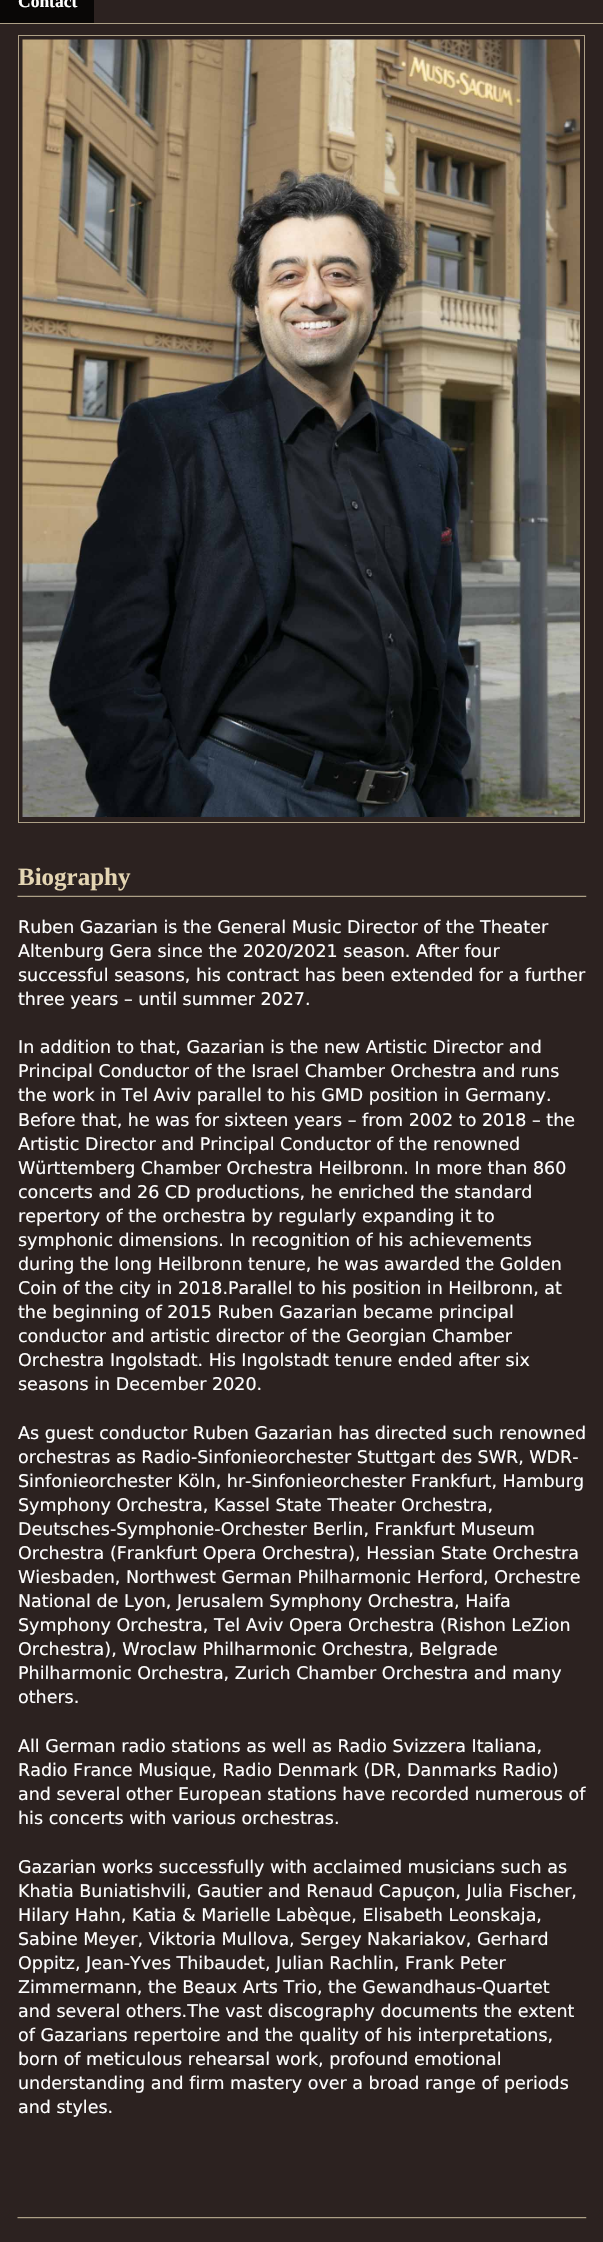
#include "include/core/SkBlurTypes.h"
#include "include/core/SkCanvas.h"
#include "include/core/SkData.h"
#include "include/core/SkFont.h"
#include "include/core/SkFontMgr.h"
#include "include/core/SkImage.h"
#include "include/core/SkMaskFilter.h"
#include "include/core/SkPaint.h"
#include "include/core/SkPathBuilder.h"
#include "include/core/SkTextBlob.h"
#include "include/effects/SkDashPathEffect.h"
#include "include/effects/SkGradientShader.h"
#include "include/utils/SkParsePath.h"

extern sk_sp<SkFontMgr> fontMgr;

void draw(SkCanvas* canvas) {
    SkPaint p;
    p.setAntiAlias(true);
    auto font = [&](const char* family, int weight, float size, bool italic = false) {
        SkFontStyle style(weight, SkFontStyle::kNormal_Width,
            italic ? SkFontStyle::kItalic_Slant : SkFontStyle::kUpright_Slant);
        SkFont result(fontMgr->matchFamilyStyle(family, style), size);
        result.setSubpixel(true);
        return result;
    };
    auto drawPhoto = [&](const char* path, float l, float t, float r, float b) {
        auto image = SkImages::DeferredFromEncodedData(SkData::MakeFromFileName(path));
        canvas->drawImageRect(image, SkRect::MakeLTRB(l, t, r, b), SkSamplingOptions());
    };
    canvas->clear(0xFF2C2220);
    p.setColor(0xFFADA086);
    canvas->drawRect(SkRect::MakeLTRB(0, 23, 603, 24), p);
    p.setColor(0xFF090706);
    canvas->drawRect(SkRect::MakeLTRB(0, 0, 94, 23), p);
    auto font1 = font("Liberation Serif", 700, 17.5f);
    p.setColor(0xFFFFFFFF);
    canvas->drawString("Contact", 18, 7, font1, p);
    p.setStyle(SkPaint::kStroke_Style);
    p.setStrokeWidth(1);
    p.setColor(0xFFADA086);
    canvas->drawRect(SkRect::MakeLTRB(18.5f, 35.5f, 584.5f, 822.5f), p);
    drawPhoto("media/1.png", 22, 39, 580, 817);
    drawPhoto("media/2.png", 17, 895, 587, 897);
    auto font2 = font("Liberation Serif", 700, 25);
    p.setStyle(SkPaint::kFill_Style);
    p.setColor(0xFFE4D5B2);
    canvas->drawString("Biography", 18, 885, font2, p);
    auto font3 = font("DejaVu Sans", 400, 17.5f);
    p.setColor(0xFFFFFFFF);
    {
        const struct { const char* s; float x, y; } items[] = {
            {"Ruben Gazarian is the General Music Director of the Theater", 18, 933},
            {"Altenburg Gera since the 2020/2021 season. After four", 18, 957},
            {"successful seasons, his contract has been extended for a further", 18, 981},
            {"three years – until summer 2027.", 18, 1005},
            {"In addition to that, Gazarian is the new Artistic Director and", 18, 1053},
            {"Principal Conductor of the Israel Chamber Orchestra and runs", 18, 1077},
            {"the work in Tel Aviv parallel to his GMD position in Germany.", 18, 1101},
            {"Before that, he was for sixteen years – from 2002 to 2018 – the", 18, 1126},
            {"Artistic Director and Principal Conductor of the renowned", 18, 1150},
            {"Württemberg Chamber Orchestra Heilbronn. In more than 860", 18, 1174},
            {"concerts and 26 CD productions, he enriched the standard", 18, 1198},
            {"repertory of the orchestra by regularly expanding it to", 18, 1222},
            {"symphonic dimensions. In recognition of his achievements", 18, 1246},
            {"during the long Heilbronn tenure, he was awarded the Golden", 18, 1270},
            {"Coin of the city in 2018.Parallel to his position in Heilbronn, at", 18, 1294},
            {"the beginning of 2015 Ruben Gazarian became principal", 18, 1318},
            {"conductor and artistic director of the Georgian Chamber", 18, 1342},
            {"Orchestra Ingolstadt. His Ingolstadt tenure ended after six", 18, 1366},
            {"seasons in December 2020.", 18, 1390},
            {"As guest conductor Ruben Gazarian has directed such renowned", 18, 1439},
            {"orchestras as Radio-Sinfonieorchester Stuttgart des SWR, WDR-", 18, 1463},
            {"Sinfonieorchester Köln, hr-Sinfonieorchester Frankfurt, Hamburg", 18, 1487},
            {"Symphony Orchestra, Kassel State Theater Orchestra,", 18, 1511},
            {"Deutsches-Symphonie-Orchester Berlin, Frankfurt Museum", 18, 1535},
            {"Orchestra (Frankfurt Opera Orchestra), Hessian State Orchestra", 18, 1559},
            {"Wiesbaden, Northwest German Philharmonic Herford, Orchestre", 18, 1583},
            {"National de Lyon, Jerusalem Symphony Orchestra, Haifa", 18, 1607},
            {"Symphony Orchestra, Tel Aviv Opera Orchestra (Rishon LeZion", 18, 1631},
            {"Orchestra), Wroclaw Philharmonic Orchestra, Belgrade", 18, 1655},
            {"Philharmonic Orchestra, Zurich Chamber Orchestra and many", 18, 1679},
            {"others.", 18, 1703},
            {"All German radio stations as well as Radio Svizzera Italiana,", 18, 1752},
            {"Radio France Musique, Radio Denmark (DR, Danmarks Radio)", 18, 1776},
            {"and several other European stations have recorded numerous of", 18, 1800},
            {"his concerts with various orchestras.", 18, 1824},
            {"Gazarian works successfully with acclaimed musicians such as", 18, 1873},
            {"Khatia Buniatishvili, Gautier and Renaud Capuçon, Julia Fischer,", 18, 1897},
            {"Hilary Hahn, Katia & Marielle Labèque, Elisabeth Leonskaja,", 18, 1921},
            {"Sabine Meyer, Viktoria Mullova, Sergey Nakariakov, Gerhard", 18, 1945},
            {"Oppitz, Jean-Yves Thibaudet, Julian Rachlin, Frank Peter", 18, 1969},
            {"Zimmermann, the Beaux Arts Trio, the Gewandhaus-Quartet", 18, 1993},
            {"and several others.The vast discography documents the extent", 18, 2017},
            {"of Gazarians repertoire and the quality of his interpretations,", 18, 2041},
            {"born of meticulous rehearsal work, profound emotional", 18, 2065},
            {"understanding and firm mastery over a broad range of periods", 18, 2089},
            {"and styles.", 18, 2113},
        };
        for (auto [s, x, y] : items) {
            canvas->drawString(s, x, y, font3, p);
        }
    }
    drawPhoto("media/3.png", 17, 2217, 587, 2219);
}
